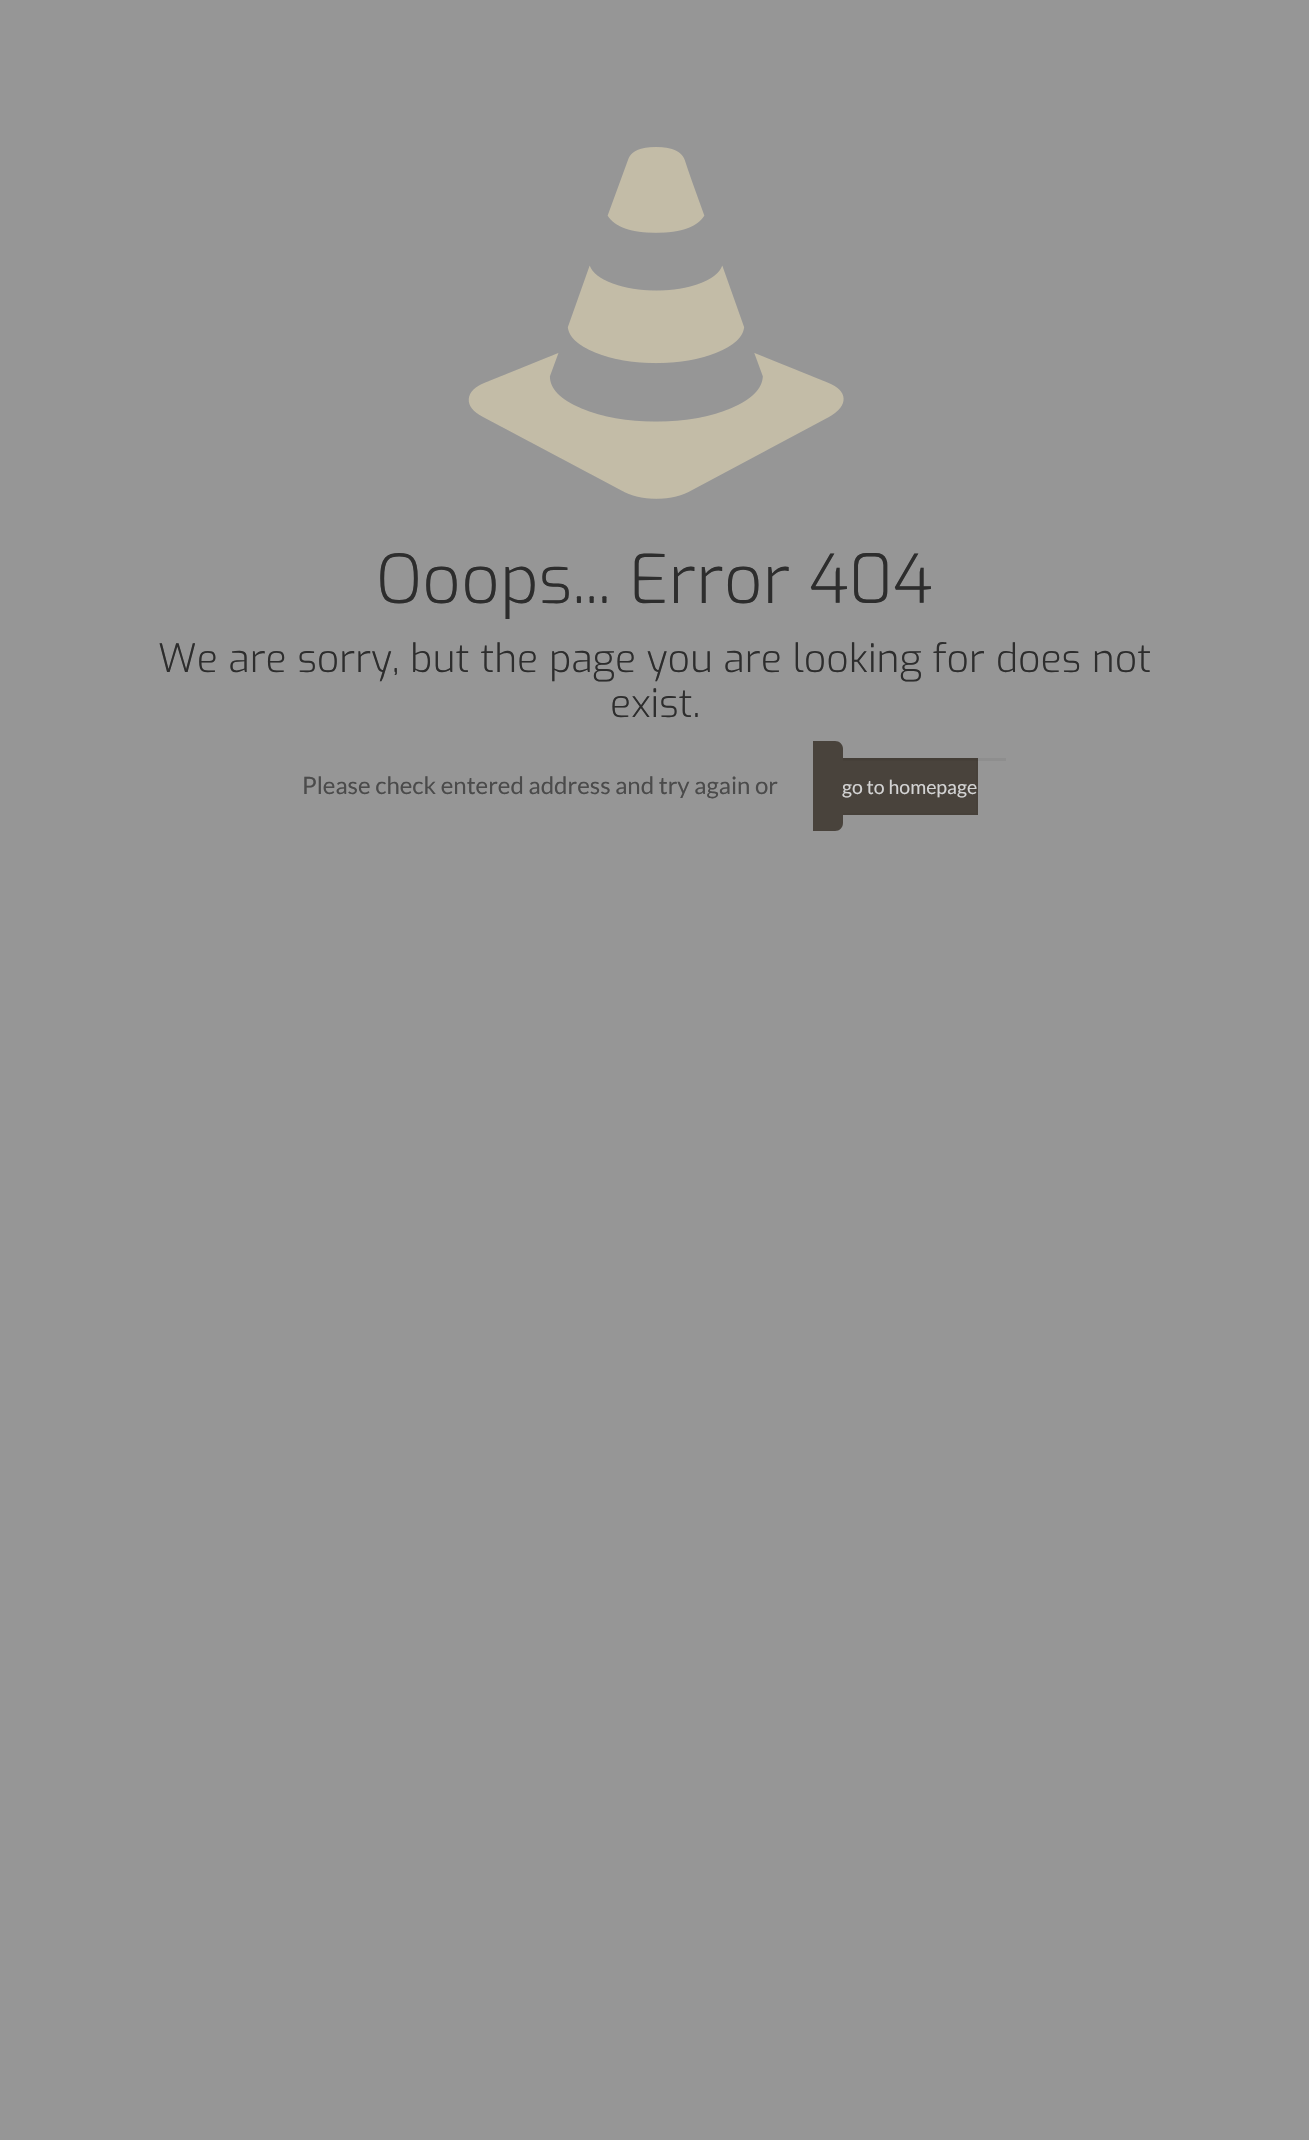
#include "include/core/SkBlurTypes.h"
#include "include/core/SkCanvas.h"
#include "include/core/SkData.h"
#include "include/core/SkFont.h"
#include "include/core/SkFontMgr.h"
#include "include/core/SkImage.h"
#include "include/core/SkMaskFilter.h"
#include "include/core/SkPaint.h"
#include "include/core/SkPathBuilder.h"
#include "include/core/SkTextBlob.h"
#include "include/effects/SkDashPathEffect.h"
#include "include/effects/SkGradientShader.h"
#include "include/utils/SkParsePath.h"

extern sk_sp<SkFontMgr> fontMgr;

void draw(SkCanvas* canvas) {
    SkPaint p;
    p.setAntiAlias(true);
    auto font = [&](const char* family, int weight, float size, bool italic = false) {
        SkFontStyle style(weight, SkFontStyle::kNormal_Width,
            italic ? SkFontStyle::kItalic_Slant : SkFontStyle::kUpright_Slant);
        SkFont result(fontMgr->matchFamilyStyle(family, style), size);
        result.setSubpixel(true);
        return result;
    };
    auto drawPhoto = [&](const char* path, float l, float t, float r, float b) {
        auto image = SkImages::DeferredFromEncodedData(SkData::MakeFromFileName(path));
        canvas->drawImageRect(image, SkRect::MakeLTRB(l, t, r, b), SkSamplingOptions());
    };
    canvas->clear(0xFF969696);
    drawPhoto("media/1.png", 468, 147, 844, 499);
    auto font1 = font("Exo", 300, 67.5f);
    p.setColor(0xFF2D2D2D);
    canvas->drawString("Ooops... Error 404", 376, 603, font1, p);
    auto font2 = font("Exo", 300, 39);
    canvas->drawString("We are sorry, but the page you are looking for does not", 158, 672, font2, p);
    canvas->drawString("exist.", 610, 717, font2, p);
    auto font3 = font("Lato", 400, 24);
    p.setColor(0xFF4B4B4B);
    canvas->drawString("Please check entered address and try again or", 302, 794, font3, p);
    p.setColor(0xFF49433C);
    canvas->drawRect(SkRect::MakeLTRB(843, 758, 978, 815), p);
    p.setColor(0x0D000000);
    canvas->drawRect(SkRect::MakeLTRB(843, 758, 1006, 761), p);
    p.setStyle(SkPaint::kStroke_Style);
    p.setStrokeWidth(2);
    p.setColor(0x08000000);
    canvas->drawRect(SkRect::MakeLTRB(814, 759, 977, 814), p);
    p.setStyle(SkPaint::kFill_Style);
    p.setColor(0xFF49433C);
    canvas->drawPath(SkPathBuilder().moveTo(813, 741).lineTo(835, 741).cubicTo(839.5f, 741, 843, 744.5f, 843, 749).lineTo(843, 823).cubicTo(843, 827.5f, 839.5f, 831, 835, 831).lineTo(813, 831).close().detach(), p);
    auto font4 = font("Lato", 400, 19.5f);
    p.setColor(0xFFD3D3D3);
    canvas->drawString("go to homepage", 842, 794, font4, p);
}
